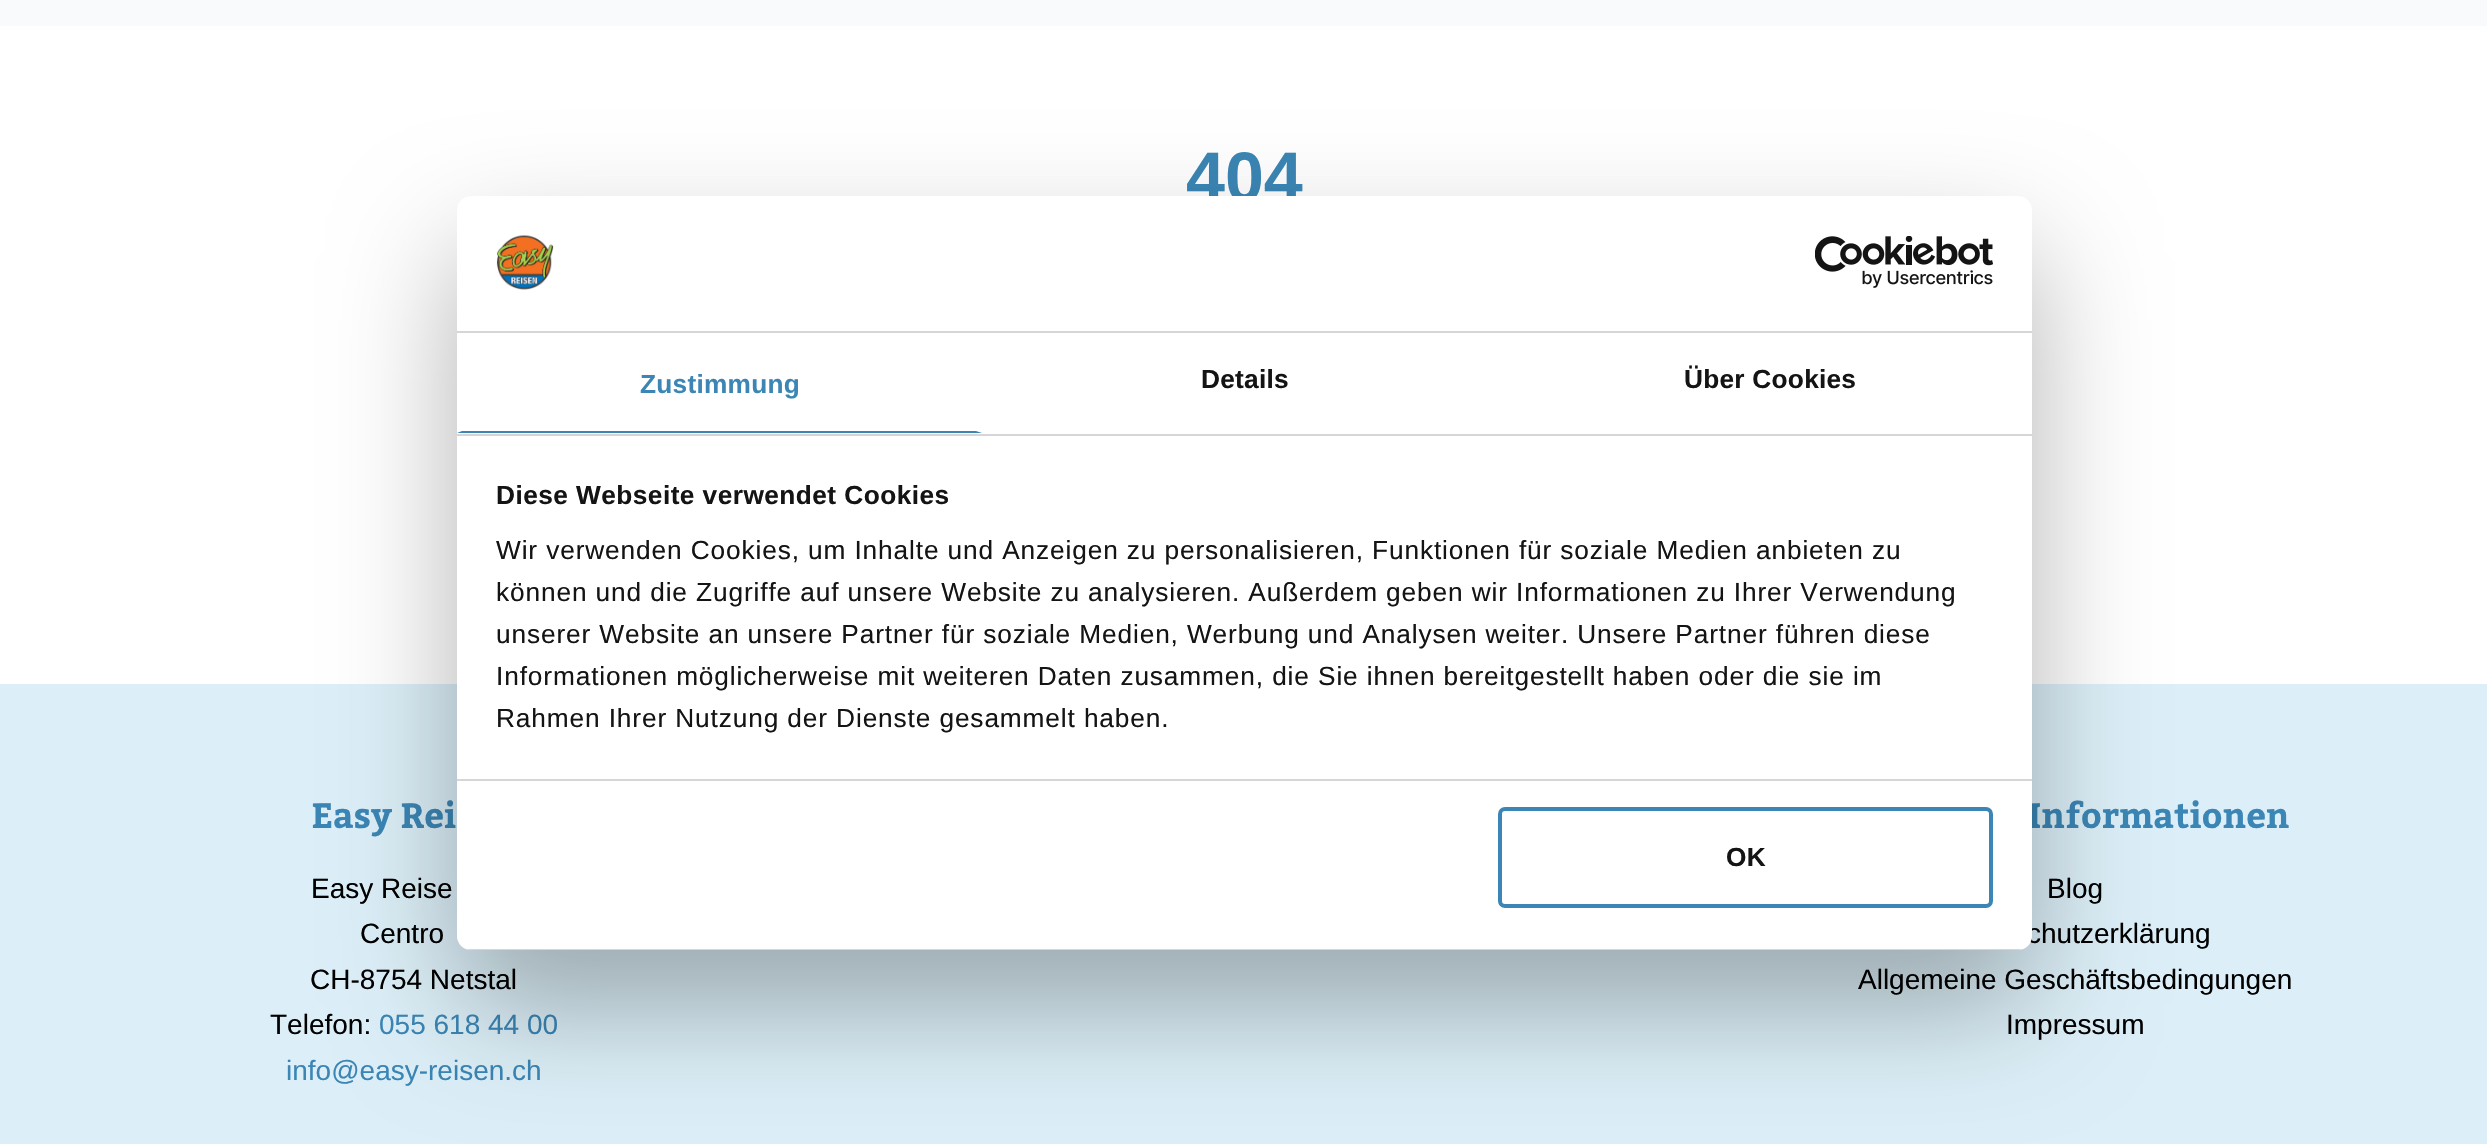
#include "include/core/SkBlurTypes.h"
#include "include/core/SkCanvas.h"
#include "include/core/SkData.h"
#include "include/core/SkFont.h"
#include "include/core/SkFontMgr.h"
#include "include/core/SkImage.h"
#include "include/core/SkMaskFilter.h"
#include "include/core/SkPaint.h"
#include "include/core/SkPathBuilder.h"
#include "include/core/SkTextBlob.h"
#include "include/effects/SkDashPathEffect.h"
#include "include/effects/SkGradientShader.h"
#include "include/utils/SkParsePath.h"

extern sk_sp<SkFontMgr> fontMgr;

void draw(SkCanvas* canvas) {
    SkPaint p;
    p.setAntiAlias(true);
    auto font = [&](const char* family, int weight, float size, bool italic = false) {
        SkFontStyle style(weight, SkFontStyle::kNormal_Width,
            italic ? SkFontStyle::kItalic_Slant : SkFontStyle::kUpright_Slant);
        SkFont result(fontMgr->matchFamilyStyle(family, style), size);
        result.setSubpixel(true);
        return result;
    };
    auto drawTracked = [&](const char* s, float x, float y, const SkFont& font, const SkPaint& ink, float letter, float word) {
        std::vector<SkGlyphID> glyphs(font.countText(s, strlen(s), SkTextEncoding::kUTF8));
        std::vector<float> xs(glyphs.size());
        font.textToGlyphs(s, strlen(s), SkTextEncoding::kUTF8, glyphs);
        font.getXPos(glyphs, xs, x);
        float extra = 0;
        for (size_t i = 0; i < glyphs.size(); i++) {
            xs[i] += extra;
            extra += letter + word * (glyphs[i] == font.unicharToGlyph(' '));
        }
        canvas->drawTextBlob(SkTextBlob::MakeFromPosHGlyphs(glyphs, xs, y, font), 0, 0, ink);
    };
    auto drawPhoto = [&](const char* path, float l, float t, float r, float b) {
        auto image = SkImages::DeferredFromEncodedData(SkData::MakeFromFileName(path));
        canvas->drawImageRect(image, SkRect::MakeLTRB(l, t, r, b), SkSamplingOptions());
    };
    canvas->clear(0xFFFFFFFF);
    p.setColor(0xFFF9FAFB);
    canvas->drawRect(SkRect::MakeLTRB(0, 0, 2487, 26), p);
    auto font1 = font("Liberation Sans", 700, 70);
    p.setColor(0xFF3B86B5);
    canvas->drawString("404", 1186, 201, font1, p);
    p.setColor(0xFFDCEFF8);
    canvas->drawRect(SkRect::MakeLTRB(0, 684, 2487, 1144), p);
    auto font2 = font("Bitter", 700, 35);
    p.setColor(0xFF3B86B5);
    canvas->drawString("Easy Rei", 311, 828, font2, p);
    auto font3 = font("Liberation Sans", 400, 28);
    p.setColor(0xFF000000);
    {
        const struct { const char* s; float x, y; } items[] = {
            {"Easy Reise", 311, 898},
            {"Centro", 360, 943},
            {"CH-8754 Netstal", 310, 989},
            {"Telefon:", 270, 1034},
        };
        for (auto [s, x, y] : items) {
            canvas->drawString(s, x, y, font3, p);
        }
    }
    p.setColor(0xFF3B86B5);
    canvas->drawString("055 618 44 00", 379, 1034, font3, p);
    canvas->drawString("info@easy-reisen.ch", 286, 1080, font3, p);
    canvas->drawString("Informationen", 2028, 828, font2, p);
    p.setColor(0xFF000000);
    {
        const struct { const char* s; float x, y; } items[] = {
            {"Blog", 2047, 898},
            {"chutzerklärung", 2027, 943},
            {"Allgemeine Geschäftsbedingungen", 1858, 989},
            {"Impressum", 2006, 1034},
        };
        for (auto [s, x, y] : items) {
            canvas->drawString(s, x, y, font3, p);
        }
    }
    p.setColor(0x4D000000);
    p.setMaskFilter(SkMaskFilter::MakeBlur(kNormal_SkBlurStyle, 59.5f));
    canvas->drawRoundRect(SkRect::MakeLTRB(457, 252, 2032, 1006), 14, 14, p);
    p.setMaskFilter(nullptr);
    p.setColor(0xFFFFFFFF);
    canvas->drawRoundRect(SkRect::MakeLTRB(457, 196, 2032, 950), 14, 14, p);
    p.setColor(0xFFD6D6D6);
    canvas->drawRect(SkRect::MakeLTRB(457, 331, 2032, 333), p);
    drawPhoto("media/1.png", 496, 235, 554, 290);
    drawPhoto("media/2.png", 1815, 236, 1993, 288);
    canvas->drawRect(SkRect::MakeLTRB(457, 434, 2032, 436), p);
    p.setColor(0xFF3B86B5);
    canvas->drawPath(SkPathBuilder().moveTo(982, 433).lineTo(457, 433).lineTo(462, 431).lineTo(976, 431).close().detach(), p);
    auto font4 = font("Liberation Sans", 700, 26.25f);
    drawTracked("Zustimmung", 640, 393, font4, p, 0.25f, 0);
    p.setColor(0xFF141414);
    drawTracked("Details", 1201, 388, font4, p, 0.25f, 0);
    drawTracked("Über Cookies", 1684, 388, font4, p, 0.25f, 0);
    p.setColor(0xFFD6D6D6);
    canvas->drawRect(SkRect::MakeLTRB(457, 779, 2032, 781), p);
    p.setColor(0xFF141414);
    drawTracked("Diese Webseite verwendet Cookies", 496, 504, font4, p, 0.45f, 0);
    auto font5 = font("Liberation Sans", 400, 26.25f);
    {
        const struct { const char* s; float x, y; } items[] = {
            {"Wir verwenden Cookies, um Inhalte und Anzeigen zu personalisieren, Funktionen für soziale Medien anbieten zu", 496, 559},
            {"können und die Zugriffe auf unsere Website zu analysieren. Außerdem geben wir Informationen zu Ihrer Verwendung", 496, 601},
            {"unserer Website an unsere Partner für soziale Medien, Werbung und Analysen weiter. Unsere Partner führen diese", 496, 643},
            {"Informationen möglicherweise mit weiteren Daten zusammen, die Sie ihnen bereitgestellt haben oder die sie im", 496, 685},
            {"Rahmen Ihrer Nutzung der Dienste gesammelt haben.", 496, 727},
        };
        for (auto [s, x, y] : items) {
            drawTracked(s, x, y, font5, p, 0.88f, 0);
        }
    }
    canvas->save();
    canvas->clipPath(SkPathBuilder().moveTo(471, 196).lineTo(2018, 196).cubicTo(2025.5f, 196, 2032, 202.5f, 2032, 210).lineTo(2032, 936).cubicTo(2032, 943.5f, 2025.5f, 950, 2018, 950).lineTo(471, 950).cubicTo(463.5f, 950, 457, 943.5f, 457, 936).lineTo(457, 210).cubicTo(457, 202.5f, 463.5f, 196, 471, 196).close().detach(), true);
    p.setColor(0xFFD6D6D6);
    canvas->drawRect(SkRect::MakeLTRB(466, 949, 2023, 950), p);
    canvas->restore();
    p.setStyle(SkPaint::kStroke_Style);
    p.setStrokeWidth(4);
    p.setColor(0xFF3B86B5);
    canvas->drawRoundRect(SkRect::MakeLTRB(1500, 809, 1991, 906), 5, 5, p);
    p.setStyle(SkPaint::kFill_Style);
    p.setColor(0xFF141414);
    drawTracked("OK", 1726, 866, font4, p, 0.25f, 0);
}
